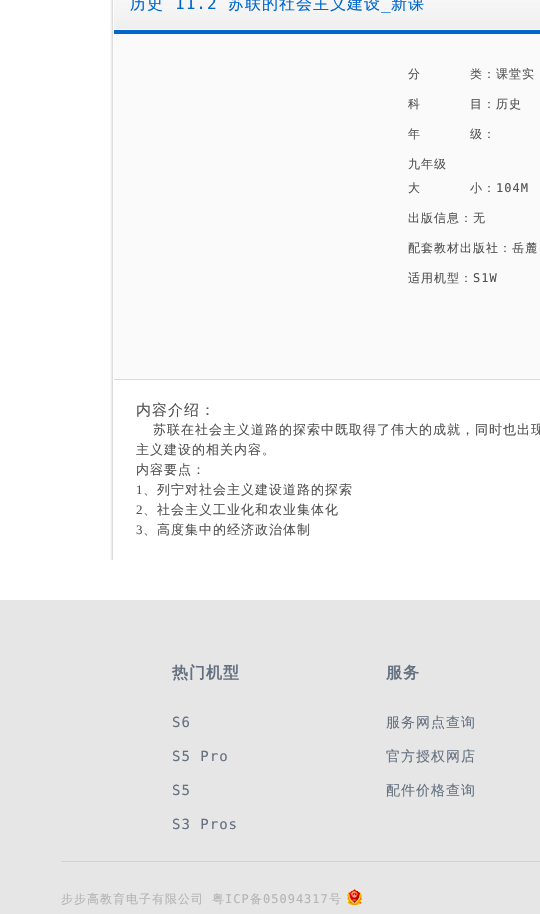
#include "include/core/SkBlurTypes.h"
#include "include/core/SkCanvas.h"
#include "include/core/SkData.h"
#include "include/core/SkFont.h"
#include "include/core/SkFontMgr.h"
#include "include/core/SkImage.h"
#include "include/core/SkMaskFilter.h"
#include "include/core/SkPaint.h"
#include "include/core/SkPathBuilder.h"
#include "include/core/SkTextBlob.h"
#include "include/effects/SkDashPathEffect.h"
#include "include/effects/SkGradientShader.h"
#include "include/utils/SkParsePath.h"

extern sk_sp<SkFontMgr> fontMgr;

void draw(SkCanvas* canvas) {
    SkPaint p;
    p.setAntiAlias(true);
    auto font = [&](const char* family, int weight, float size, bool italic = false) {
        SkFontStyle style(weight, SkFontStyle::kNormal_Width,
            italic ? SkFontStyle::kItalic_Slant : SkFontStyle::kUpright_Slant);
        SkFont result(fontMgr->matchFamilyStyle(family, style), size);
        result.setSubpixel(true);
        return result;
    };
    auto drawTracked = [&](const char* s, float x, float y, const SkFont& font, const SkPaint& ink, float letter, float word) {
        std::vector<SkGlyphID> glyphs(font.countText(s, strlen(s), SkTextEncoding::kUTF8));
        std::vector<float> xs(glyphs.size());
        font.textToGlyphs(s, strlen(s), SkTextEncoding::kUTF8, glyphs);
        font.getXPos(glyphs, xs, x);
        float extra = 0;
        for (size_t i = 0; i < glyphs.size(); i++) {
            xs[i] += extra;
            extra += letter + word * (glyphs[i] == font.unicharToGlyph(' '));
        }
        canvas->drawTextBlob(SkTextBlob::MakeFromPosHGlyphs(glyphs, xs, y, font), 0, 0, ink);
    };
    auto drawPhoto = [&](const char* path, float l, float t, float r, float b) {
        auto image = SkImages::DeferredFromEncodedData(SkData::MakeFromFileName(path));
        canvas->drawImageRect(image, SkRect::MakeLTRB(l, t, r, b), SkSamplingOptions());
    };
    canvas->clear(0xFFFFFFFF);
    drawPhoto("media/1.png", 110, 0, 540, 30);
    auto font1 = font("WenQuanYi Zen Hei", 500, 16);
    p.setColor(0xFF0066CC);
    drawTracked("历史", 130, 9, font1, p, 1, 0);
    auto font2 = font("DejaVu Sans Mono", 400, 16);
    drawTracked("11.2", 175, 9, font2, p, 1, 0);
    drawTracked("苏联的社会主义建设", 228, 9, font1, p, 1, 0);
    drawTracked("新课", 391, 9, font1, p, 1, 0);
    drawTracked("_", 381, 9, font2, p, 1, 0);
    drawPhoto("media/2.png", 110, 30, 540, 380);
    canvas->drawRect(SkRect::MakeLTRB(114, 30, 540, 34), p);
    auto font3 = font("WenQuanYi Zen Hei", 500, 12);
    p.setColor(0xFF525252);
    {
        const struct { const char* s; float x, y; } items[] = {
            {"分", 408, 78},
            {"类：课堂实", 470, 78},
            {"科", 408, 108},
            {"目：历史", 470, 108},
            {"年", 408, 138},
            {"级：", 470, 138},
            {"九年级", 408, 168},
            {"大", 408, 192},
            {"小：", 470, 192},
        };
        for (auto [s, x, y] : items) {
            drawTracked(s, x, y, font3, p, 1, 0);
        }
    }
    auto font4 = font("DejaVu Sans Mono", 400, 12);
    drawTracked("104M", 496, 192, font4, p, 1, 0);
    {
        const struct { const char* s; float x, y; } items[] = {
            {"出版信息：无", 408, 222},
            {"配套教材出版社：岳麓", 408, 252},
            {"适用机型：", 408, 282},
        };
        for (auto [s, x, y] : items) {
            drawTracked(s, x, y, font3, p, 1, 0);
        }
    }
    drawTracked("S1W", 473, 282, font4, p, 1, 0);
    p.setColor(0xFFD9D9D9);
    canvas->drawRect(SkRect::MakeLTRB(114, 379, 540, 380), p);
    drawPhoto("media/3.png", 110, 380, 540, 560);
    auto font5 = font("WenQuanYi Zen Hei", 500, 15);
    p.setColor(0xFF525252);
    drawTracked("内容介绍：", 136, 415, font5, p, 1, 0);
    auto font6 = font("WenQuanYi Zen Hei", 500, 13);
    {
        const struct { const char* s; float x, y; } items[] = {
            {"苏联在社会主义道路的探索中既取得了伟大的成就，同时也出现", 153, 434},
            {"主义建设的相关内容。", 136, 454},
            {"内容要点：", 136, 474},
        };
        for (auto [s, x, y] : items) {
            drawTracked(s, x, y, font6, p, 1, 0);
        }
    }
    auto font7 = font("Liberation Serif", 400, 13);
    drawTracked("1", 136, 494, font7, p, 1, 0);
    drawTracked("、列宁对社会主义建设道路的探索", 143, 494, font6, p, 1, 0);
    drawTracked("2", 136, 514, font7, p, 1, 0);
    drawTracked("、社会主义工业化和农业集体化", 143, 514, font6, p, 1, 0);
    drawTracked("3", 136, 534, font7, p, 1, 0);
    drawTracked("、高度集中的经济政治体制", 143, 534, font6, p, 1, 0);
    p.setColor(0xFFE6E6E6);
    canvas->drawRect(SkRect::MakeLTRB(0, 600, 540, 914), p);
    p.setColor(0xFFD2D2D2);
    canvas->drawRect(SkRect::MakeLTRB(61, 861, 540, 862), p);
    auto font8 = font("WenQuanYi Zen Hei", 700, 16);
    p.setColor(0xFF657180);
    drawTracked("热门机型", 172, 678, font8, p, 1, 0);
    auto font9 = font("DejaVu Sans Mono", 400, 14);
    {
        const struct { const char* s; float x, y; } items[] = {
            {"S6", 172, 727},
            {"S5 Pro", 172, 761},
            {"S5", 172, 795},
            {"S3 Pros", 172, 829},
        };
        for (auto [s, x, y] : items) {
            drawTracked(s, x, y, font9, p, 1, 0);
        }
    }
    drawTracked("服务", 386, 678, font8, p, 1, 0);
    auto font10 = font("WenQuanYi Zen Hei", 500, 14);
    {
        const struct { const char* s; float x, y; } items[] = {
            {"服务网点查询", 386, 727},
            {"官方授权网店", 386, 761},
            {"配件价格查询", 386, 795},
        };
        for (auto [s, x, y] : items) {
            drawTracked(s, x, y, font10, p, 1, 0);
        }
    }
    p.setColor(0xFFB4B4B4);
    drawTracked("步步高教育电子有限公司", 61, 903, font3, p, 1, 0);
    drawTracked("粤", 212, 903, font3, p, 1, 0);
    drawTracked("ICP", 225, 903, font4, p, 1, 0);
    drawTracked("备", 250, 903, font3, p, 1, 0);
    drawTracked("05094317", 263, 903, font4, p, 1, 0);
    drawTracked("号", 329, 903, font3, p, 1, 0);
    drawPhoto("media/4.png", 347, 889, 362, 905);
}
